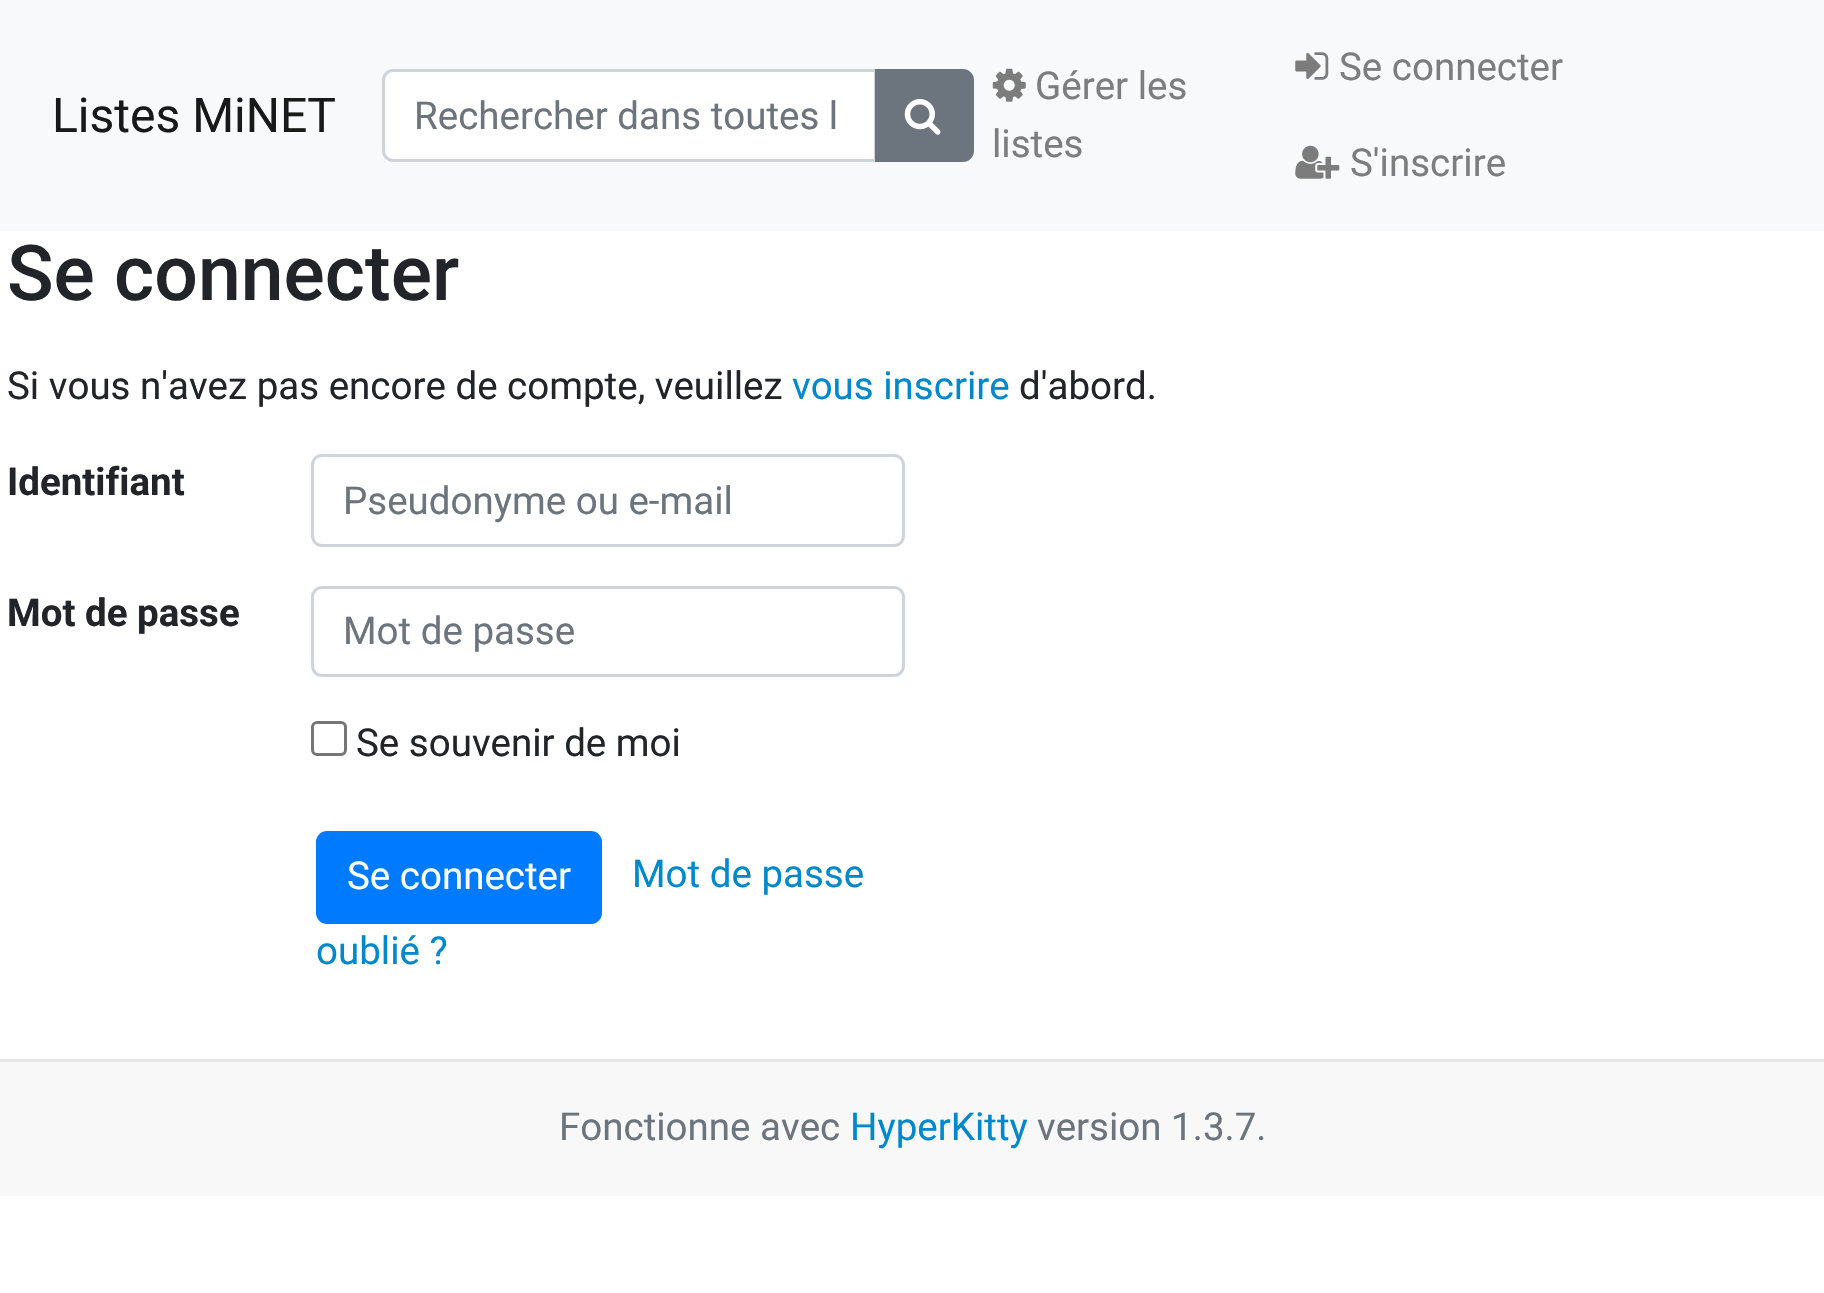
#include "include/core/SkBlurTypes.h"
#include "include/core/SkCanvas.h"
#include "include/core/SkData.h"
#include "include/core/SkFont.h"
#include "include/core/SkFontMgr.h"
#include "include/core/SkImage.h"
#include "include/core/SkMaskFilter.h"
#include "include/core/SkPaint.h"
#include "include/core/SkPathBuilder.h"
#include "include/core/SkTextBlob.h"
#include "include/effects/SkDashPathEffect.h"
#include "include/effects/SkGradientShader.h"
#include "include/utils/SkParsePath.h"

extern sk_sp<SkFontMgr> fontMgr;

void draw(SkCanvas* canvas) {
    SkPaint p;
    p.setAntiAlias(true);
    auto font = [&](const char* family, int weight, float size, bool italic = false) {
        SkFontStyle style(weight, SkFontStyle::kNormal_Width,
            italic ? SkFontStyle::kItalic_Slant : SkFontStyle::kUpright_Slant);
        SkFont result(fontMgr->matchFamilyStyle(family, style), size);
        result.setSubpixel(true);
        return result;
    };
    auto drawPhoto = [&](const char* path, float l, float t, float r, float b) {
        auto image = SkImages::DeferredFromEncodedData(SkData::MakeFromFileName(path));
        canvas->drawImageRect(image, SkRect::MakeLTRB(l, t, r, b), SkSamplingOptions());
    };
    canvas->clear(0xFFFFFFFF);
    p.setColor(0xFFF8F9FA);
    canvas->drawRect(SkRect::MakeLTRB(0, 0, 1824, 231), p);
    auto font1 = font("Roboto", 400, 48);
    p.setColor(0xFF191919);
    canvas->drawString("Listes MiNET", 52, 132, font1, p);
    p.setColor(0xFFFFFFFF);
    canvas->drawPath(SkPathBuilder().moveTo(392, 72).lineTo(875, 72).lineTo(875, 160).lineTo(392, 160).cubicTo(388, 160, 385, 157, 385, 153).lineTo(385, 79).cubicTo(385, 75, 388, 72, 392, 72).close().detach(), p);
    p.setStyle(SkPaint::kStroke_Style);
    p.setStrokeWidth(3);
    p.setColor(0xFFCED4DA);
    canvas->drawPath(SkPathBuilder().moveTo(393, 70.5f).lineTo(875.5f, 70.5f).lineTo(875.5f, 160.5f).lineTo(393, 160.5f).cubicTo(388, 160.5f, 383.5f, 156, 383.5f, 151).lineTo(383.5f, 80).cubicTo(383.5f, 75, 388, 70.5f, 393, 70.5f).close().detach(), p);
    auto font2 = font("Roboto", 400, 38.5f);
    p.setStyle(SkPaint::kFill_Style);
    p.setColor(0xFF6C757D);
    canvas->drawString("Rechercher dans toutes l", 414, 129, font2, p);
    canvas->drawPath(SkPathBuilder().moveTo(876.5f, 70.5f).lineTo(963, 70.5f).cubicTo(968, 70.5f, 972.5f, 75, 972.5f, 80).lineTo(972.5f, 151).cubicTo(972.5f, 156, 968, 160.5f, 963, 160.5f).lineTo(876.5f, 160.5f).close().detach(), p);
    p.setStyle(SkPaint::kStroke_Style);
    canvas->drawPath(SkPathBuilder().moveTo(876.5f, 70.5f).lineTo(963, 70.5f).cubicTo(968, 70.5f, 972.5f, 75, 972.5f, 80).lineTo(972.5f, 151).cubicTo(972.5f, 156, 968, 160.5f, 963, 160.5f).lineTo(876.5f, 160.5f).close().detach(), p);
    drawPhoto("media/1.png", 904, 99, 941, 135);
    drawPhoto("media/2.png", 992, 68, 1026, 102);
    p.setStyle(SkPaint::kFill_Style);
    p.setColor(0xFF7C7D7D);
    canvas->drawString("Gérer les", 1035, 99, font2, p);
    canvas->drawString("listes", 992, 157, font2, p);
    drawPhoto("media/3.png", 1295, 52, 1329, 80);
    canvas->drawString("Se connecter", 1339, 80, font2, p);
    drawPhoto("media/4.png", 1295, 145, 1340, 179);
    canvas->drawString("S'inscrire", 1350, 176, font2, p);
    auto font3 = font("Roboto", 500, 77);
    p.setColor(0xFF212529);
    canvas->drawString("Se connecter", 7, 300, font3, p);
    canvas->drawString("Si vous n'avez pas encore de compte, veuillez", 7, 399, font2, p);
    p.setColor(0xFF0088CC);
    canvas->drawString("vous inscrire", 792, 399, font2, p);
    p.setColor(0xFF212529);
    canvas->drawString("d'abord.", 1019, 399, font2, p);
    auto font4 = font("Roboto", 700, 38.5f);
    canvas->drawString("Identifiant", 7, 495, font4, p);
    p.setStyle(SkPaint::kStroke_Style);
    p.setColor(0xFFCED4DA);
    canvas->drawRoundRect(SkRect::MakeLTRB(312.5f, 455.5f, 903.5f, 545.5f), 9.5f, 9.5f, p);
    p.setStyle(SkPaint::kFill_Style);
    p.setColor(0xFF6C757D);
    canvas->drawString("Pseudonyme ou e-mail", 343, 514, font2, p);
    p.setColor(0xFF212529);
    canvas->drawString("Mot de passe", 7, 626, font4, p);
    p.setStyle(SkPaint::kStroke_Style);
    p.setColor(0xFFCED4DA);
    canvas->drawRoundRect(SkRect::MakeLTRB(312.5f, 587.5f, 903.5f, 675.5f), 9.5f, 9.5f, p);
    p.setStyle(SkPaint::kFill_Style);
    p.setColor(0xFF6C757D);
    canvas->drawString("Mot de passe", 343, 644, font2, p);
    p.setStyle(SkPaint::kStroke_Style);
    p.setColor(0xFF767676);
    canvas->drawRoundRect(SkRect::MakeLTRB(312.5f, 722.5f, 345.5f, 754.5f), 4.5f, 4.5f, p);
    p.setStyle(SkPaint::kFill_Style);
    p.setColor(0xFF212529);
    canvas->drawString("Se souvenir de moi", 356, 756, font2, p);
    p.setColor(0xFF007BFF);
    canvas->drawRoundRect(SkRect::MakeLTRB(317.5f, 832.5f, 600.5f, 922.5f), 9.5f, 9.5f, p);
    p.setStyle(SkPaint::kStroke_Style);
    canvas->drawRoundRect(SkRect::MakeLTRB(317.5f, 832.5f, 600.5f, 922.5f), 9.5f, 9.5f, p);
    p.setStyle(SkPaint::kFill_Style);
    p.setColor(0xFFFFFFFF);
    canvas->drawString("Se connecter", 347, 889, font2, p);
    p.setColor(0xFF0088CC);
    canvas->drawString("Mot de passe", 632, 887, font2, p);
    canvas->drawString("oublié ?", 316, 964, font2, p);
    p.setColor(0xFFF8F8F8);
    canvas->drawRect(SkRect::MakeLTRB(0, 1062, 1824, 1196), p);
    p.setColor(0xFFE7E7E7);
    canvas->drawRect(SkRect::MakeLTRB(0, 1059, 1824, 1062), p);
    p.setColor(0xFF6C757D);
    canvas->drawString("Fonctionne avec", 559, 1140, font2, p);
    p.setColor(0xFF0088CC);
    canvas->drawString("HyperKitty", 850, 1140, font2, p);
    p.setColor(0xFF6C757D);
    canvas->drawString("version 1.3.7.", 1037, 1140, font2, p);
}
